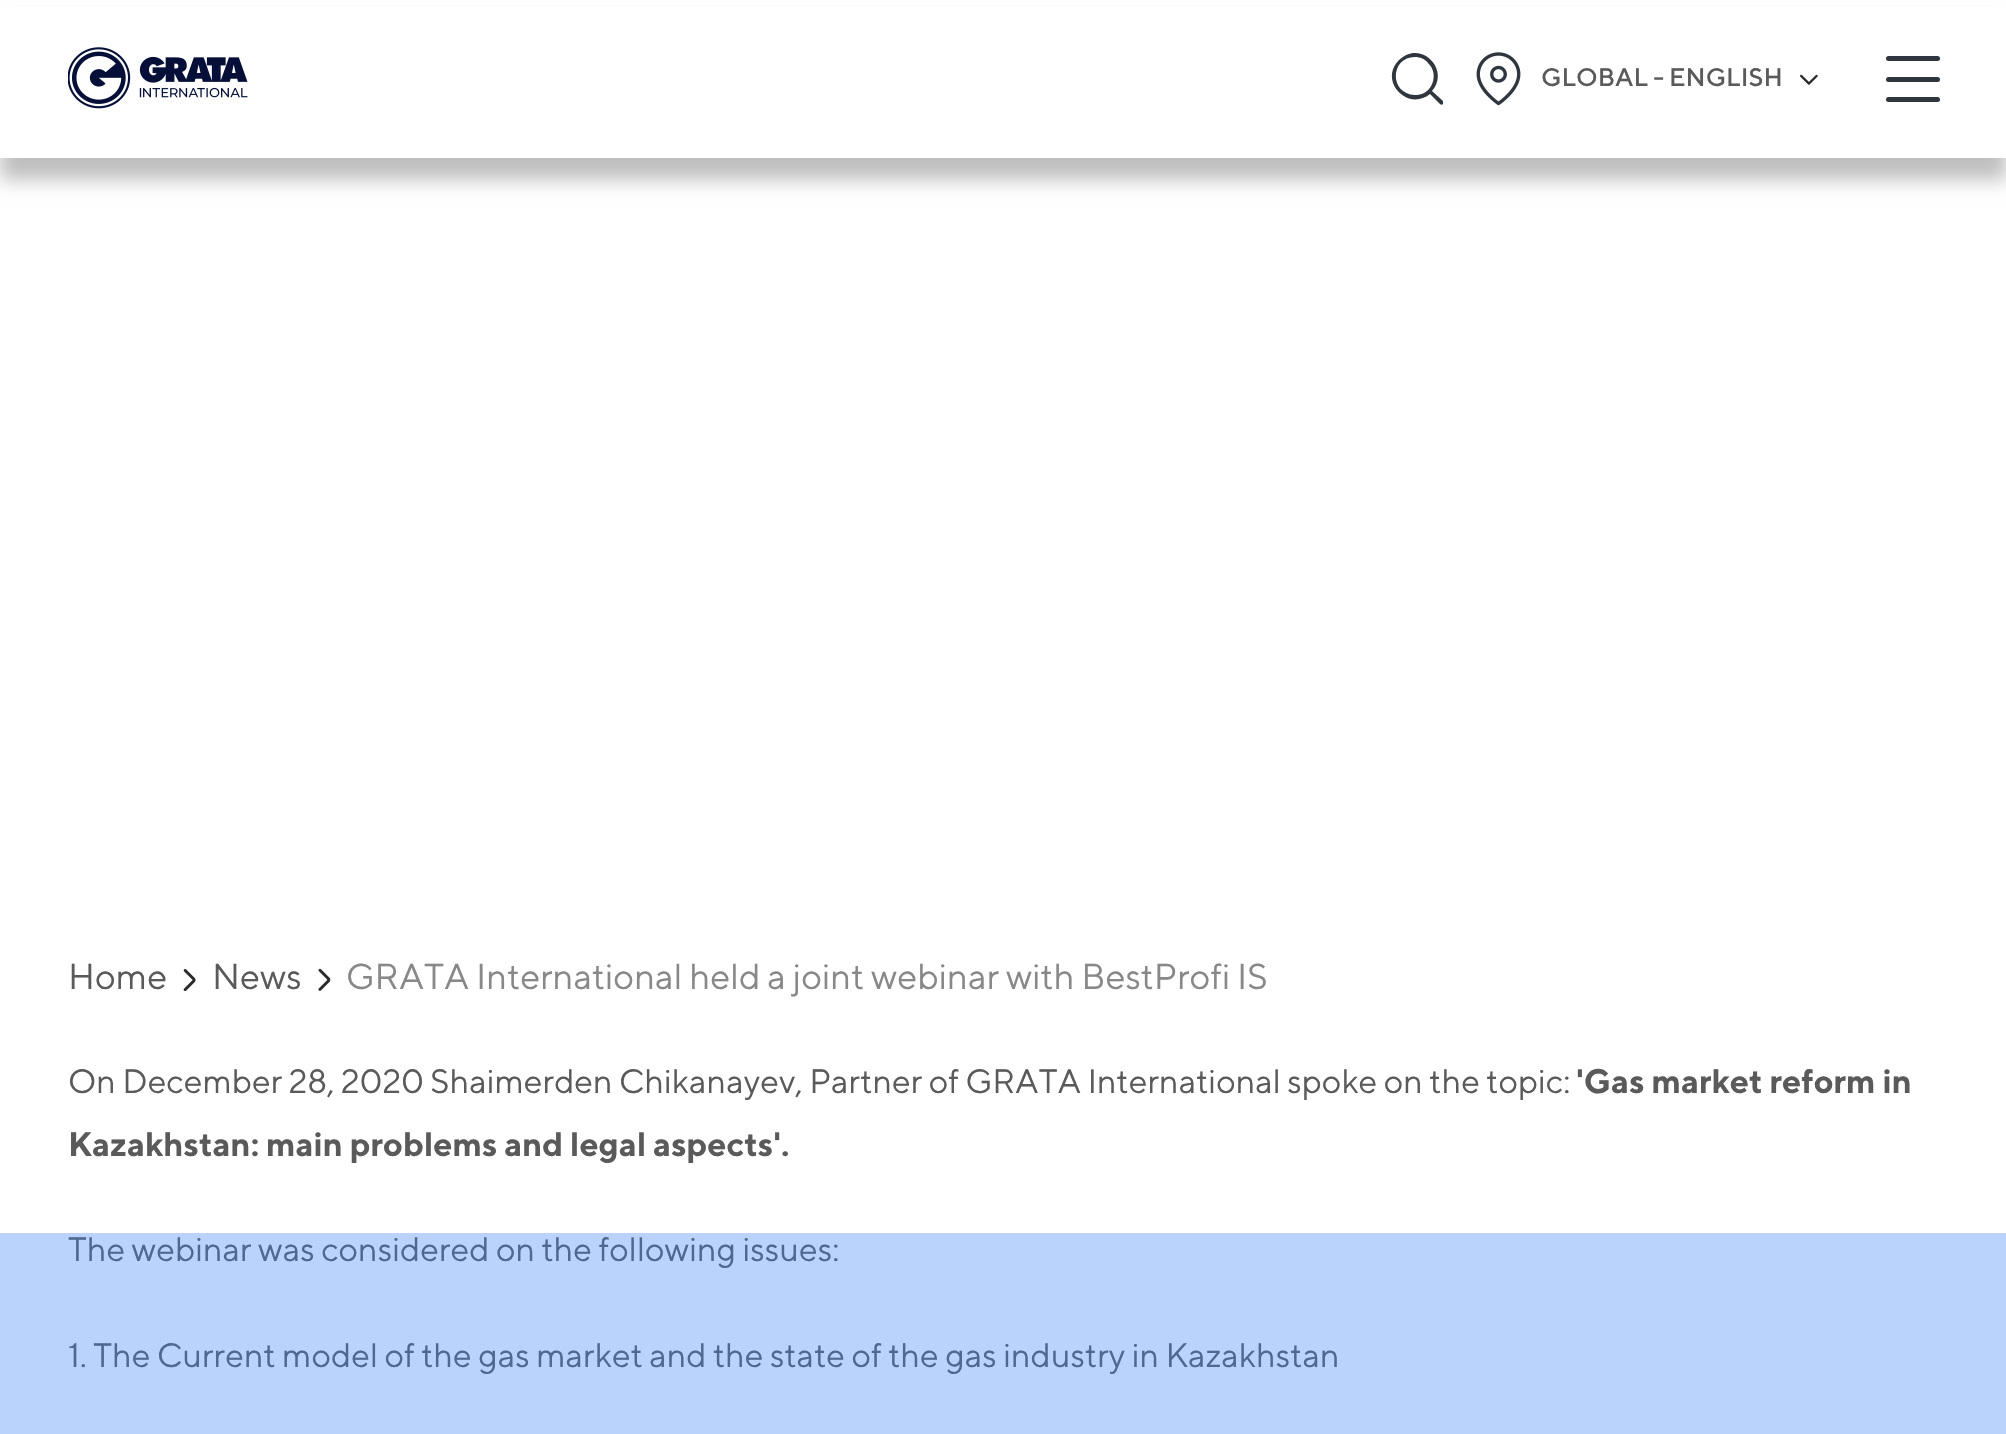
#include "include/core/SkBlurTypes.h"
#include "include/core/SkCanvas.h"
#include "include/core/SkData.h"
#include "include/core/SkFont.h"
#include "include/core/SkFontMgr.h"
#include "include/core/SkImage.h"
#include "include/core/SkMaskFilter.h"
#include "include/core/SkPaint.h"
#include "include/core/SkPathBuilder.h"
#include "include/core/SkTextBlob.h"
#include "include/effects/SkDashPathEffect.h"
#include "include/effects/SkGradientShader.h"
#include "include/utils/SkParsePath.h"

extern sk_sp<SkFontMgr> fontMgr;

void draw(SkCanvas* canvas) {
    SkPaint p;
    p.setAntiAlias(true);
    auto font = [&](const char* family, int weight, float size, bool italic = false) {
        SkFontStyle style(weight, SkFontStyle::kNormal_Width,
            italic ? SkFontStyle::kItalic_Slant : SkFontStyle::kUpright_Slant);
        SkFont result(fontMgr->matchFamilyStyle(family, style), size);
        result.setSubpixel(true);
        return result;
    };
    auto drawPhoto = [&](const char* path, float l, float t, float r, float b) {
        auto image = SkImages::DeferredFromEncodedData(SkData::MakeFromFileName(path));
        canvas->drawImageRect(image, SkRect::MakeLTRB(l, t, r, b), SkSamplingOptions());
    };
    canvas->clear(0xFFFFFFFF);
    p.setColor(0xFFBAD3FC);
    canvas->drawRect(SkRect::MakeLTRB(0, 1233, 2006, 1434), p);
    p.setColor(0x40000000);
    p.setMaskFilter(SkMaskFilter::MakeBlur(kNormal_SkBlurStyle, 9));
    canvas->drawRect(SkRect::MakeLTRB(0, 23, 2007, 180), p);
    p.setMaskFilter(nullptr);
    p.setColor(0xFFFFFFFF);
    canvas->drawRect(SkRect::MakeLTRB(0, 7, 2006, 158), p);
    drawPhoto("media/1.png", 68, 47, 248, 109);
    p.setColor(0xFF2F363D);
    canvas->drawPath(SkPathBuilder(SkPathFillType::kEvenOdd).moveTo(1415, 57).cubicTo(1390, 57, 1389, 94, 1415, 95).cubicTo(1432, 96, 1440, 74, 1428, 63).cubicTo(1425, 59, 1420, 57, 1415, 57).close().moveTo(1432, 91).cubicTo(1451, 69, 1420, 39, 1399, 60).cubicTo(1378, 81, 1408, 112, 1430, 94).lineTo(1440, 104).cubicTo(1441, 105, 1442, 105, 1443, 104).cubicTo(1443, 103, 1443, 102, 1443, 101).close().detach(), p);
    drawPhoto("media/2.png", 1476, 52, 1521, 106);
    auto font1 = font("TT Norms", 500, 25.25f);
    p.setColor(0xFF5A5A5A);
    canvas->drawString("GLOBAL - ENGLISH", 1541, 86, font1, p);
    drawPhoto("media/3.png", 1800, 74, 1818, 85);
    p.setColor(0xFF2F363D);
    canvas->drawRoundRect(SkRect::MakeLTRB(1886, 56, 1940, 61), 2.5f, 2.5f, p);
    canvas->drawRoundRect(SkRect::MakeLTRB(1886, 77, 1940, 82), 2.5f, 2.5f, p);
    canvas->drawRoundRect(SkRect::MakeLTRB(1886, 97, 1940, 102), 2.5f, 2.5f, p);
    auto font2 = font("TT Norms", 400, 36);
    p.setColor(0xFF5A5A5A);
    canvas->drawString("Home", 68, 989, font2, p);
    drawPhoto("media/4.png", 183, 969, 196, 991);
    canvas->drawString("News", 212, 989, font2, p);
    drawPhoto("media/5.png", 318, 968, 331, 991);
    p.setColor(0xFF888888);
    canvas->drawString("GRATA International held a joint webinar with BestProfi IS", 346, 989, font2, p);
    auto font3 = font("TT Norms", 400, 33.75f);
    p.setColor(0xFF5A5A5A);
    canvas->drawString("On December 28, 2020 Shaimerden Chikanayev, Partner of GRATA International spoke on the topic:", 68, 1093, font3, p);
    auto font4 = font("TT Norms", 700, 33.75f);
    canvas->drawString("'Gas market reform in", 1576, 1093, font4, p);
    canvas->drawString("Kazakhstan: main problems and legal aspects'.", 68, 1156, font4, p);
    p.setColor(0xFF4F6891);
    canvas->drawString("The webinar was considered on the following issues:", 68, 1261, font3, p);
    canvas->drawString("1. The Current model of the gas market and the state of the gas industry in Kazakhstan", 68, 1367, font3, p);
}
